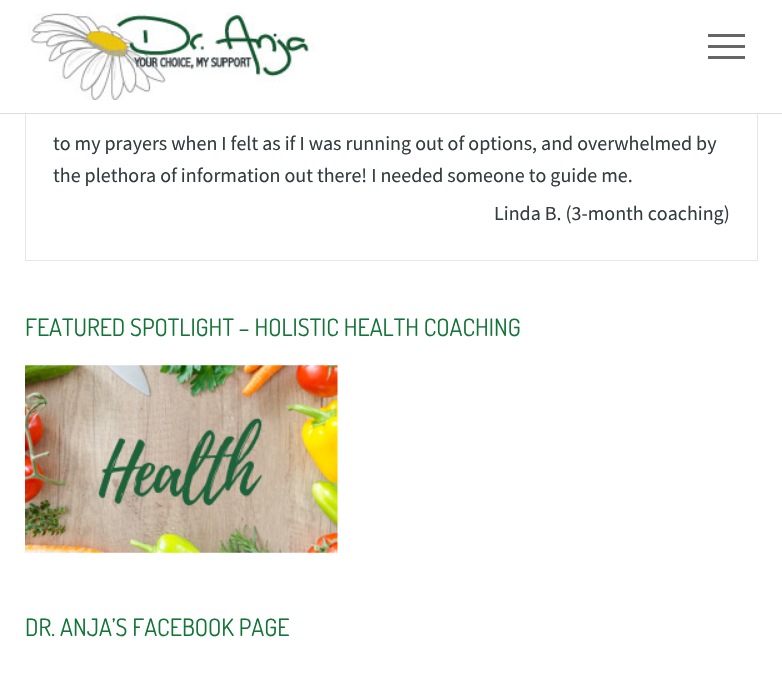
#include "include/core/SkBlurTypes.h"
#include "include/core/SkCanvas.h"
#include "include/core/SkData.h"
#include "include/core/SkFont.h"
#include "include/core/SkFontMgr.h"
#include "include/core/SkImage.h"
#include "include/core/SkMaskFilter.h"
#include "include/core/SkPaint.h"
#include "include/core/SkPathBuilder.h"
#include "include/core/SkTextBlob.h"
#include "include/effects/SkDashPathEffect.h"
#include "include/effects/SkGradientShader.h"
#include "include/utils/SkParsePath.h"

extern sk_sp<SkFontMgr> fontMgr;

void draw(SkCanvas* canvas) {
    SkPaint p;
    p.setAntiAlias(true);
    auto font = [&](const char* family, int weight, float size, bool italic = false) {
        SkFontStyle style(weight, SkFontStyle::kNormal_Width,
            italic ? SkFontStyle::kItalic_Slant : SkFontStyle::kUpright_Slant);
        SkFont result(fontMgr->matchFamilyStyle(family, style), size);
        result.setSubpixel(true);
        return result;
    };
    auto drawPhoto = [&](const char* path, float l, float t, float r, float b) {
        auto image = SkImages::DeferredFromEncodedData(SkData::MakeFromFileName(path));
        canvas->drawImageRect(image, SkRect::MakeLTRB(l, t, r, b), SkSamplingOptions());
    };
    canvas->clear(0xFFFFFFFF);
    p.setStyle(SkPaint::kStroke_Style);
    p.setStrokeWidth(1);
    p.setColor(0xFFE6E6E6);
    canvas->drawRect(SkRect::MakeLTRB(25.5f, 25.5f, 757.5f, 260.5f), p);
    p.setStyle(SkPaint::kFill_Style);
    p.setColor(0xFFFFFFFF);
    canvas->drawRect(SkRect::MakeLTRB(25, 25, 758, 113), p);
    p.setColor(0xFFDDDDDD);
    canvas->drawRect(SkRect::MakeLTRB(0, 113, 782, 114), p);
    drawPhoto("media/1.png", 28, 12, 315, 100);
    {
        const struct { float l, t, r, b; SkColor color; } items[] = {
            {708, 34, 745, 37, 0xFF666666},
            {708, 56, 745, 59, 0xFF666666},
            {708, 45, 745, 48, 0xFF666666},
        };
        for (auto [l, t, r, b, color] : items) {
            p.setColor(color);
            canvas->drawRect(SkRect::MakeLTRB(l, t, r, b), p);
        }
    }
    auto font1 = font("Source Sans Pro", 400, 20);
    p.setColor(0xFF333D3F);
    {
        const struct { const char* s; float x, y; } items[] = {
            {"to my prayers when I felt as if I was running out of options, and overwhelmed by", 53, 150},
            {"the plethora of information out there! I needed someone to guide me.", 53, 182},
            {"Linda B. (3-month coaching)", 494, 220},
        };
        for (auto [s, x, y] : items) {
            canvas->drawString(s, x, y, font1, p);
        }
    }
    auto font2 = font("Dosis", 400, 24);
    p.setColor(0xFF137437);
    canvas->drawString("FEATURED SPOTLIGHT – HOLISTIC HEALTH COACHING", 25, 336, font2, p);
    drawPhoto("media/2.png", 25, 365, 338, 553);
    canvas->drawString("DR. ANJA’S FACEBOOK PAGE", 25, 636, font2, p);
}
